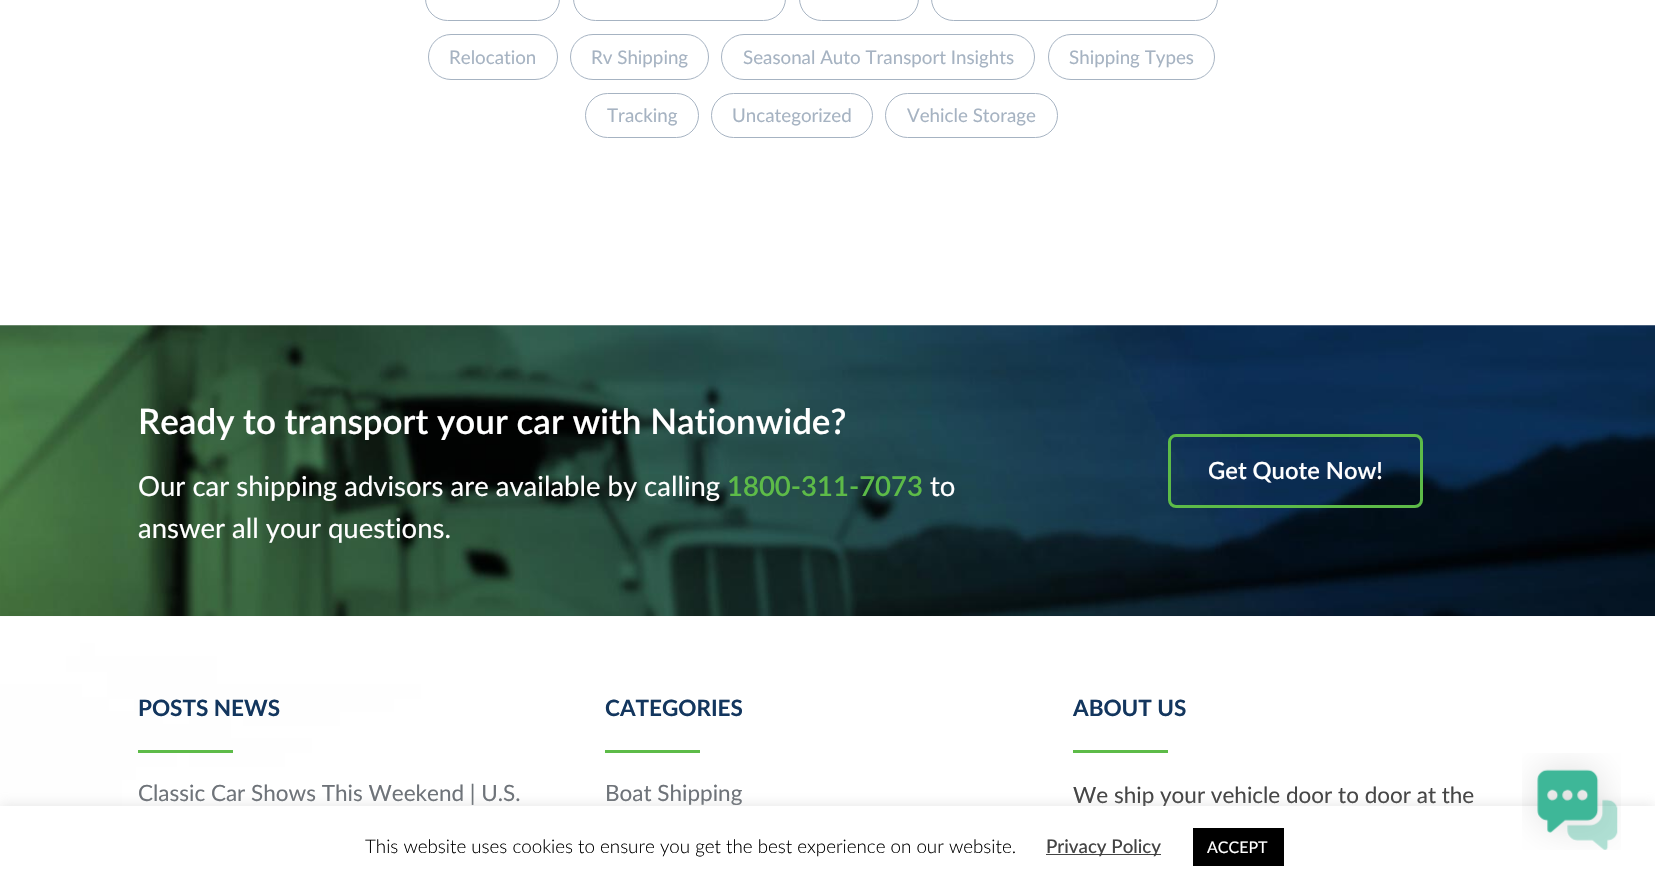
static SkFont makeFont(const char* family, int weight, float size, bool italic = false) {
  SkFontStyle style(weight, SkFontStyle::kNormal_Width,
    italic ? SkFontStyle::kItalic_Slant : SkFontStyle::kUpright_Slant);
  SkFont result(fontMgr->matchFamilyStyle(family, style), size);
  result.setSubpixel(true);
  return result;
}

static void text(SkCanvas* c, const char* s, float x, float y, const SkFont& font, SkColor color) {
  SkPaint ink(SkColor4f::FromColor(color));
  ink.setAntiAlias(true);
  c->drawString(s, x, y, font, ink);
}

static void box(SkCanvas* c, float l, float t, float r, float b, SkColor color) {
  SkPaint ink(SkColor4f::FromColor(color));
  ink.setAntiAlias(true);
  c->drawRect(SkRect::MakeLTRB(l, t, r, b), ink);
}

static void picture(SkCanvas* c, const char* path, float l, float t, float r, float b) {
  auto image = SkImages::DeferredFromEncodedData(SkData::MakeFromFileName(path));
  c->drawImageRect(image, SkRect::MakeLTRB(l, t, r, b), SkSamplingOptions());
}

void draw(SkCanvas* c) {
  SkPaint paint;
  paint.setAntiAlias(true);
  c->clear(0xffffffff);
  paint.setStyle(SkPaint::kStroke_Style);
  paint.setStrokeWidth(1);
  paint.setColor(0xffa6b3c2);
  c->drawRoundRect(SkRect::MakeLTRB(425.5f, -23.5f, 559.5f, 20.5f), 22, 22, paint);
  c->drawRoundRect(SkRect::MakeLTRB(573.5f, -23.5f, 785.5f, 20.5f), 22, 22, paint);
  c->drawRoundRect(SkRect::MakeLTRB(799.5f, -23.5f, 918.5f, 20.5f), 22, 22, paint);
  c->drawRoundRect(SkRect::MakeLTRB(931.5f, -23.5f, 1217.5f, 20.5f), 22, 22, paint);
  c->drawRoundRect(SkRect::MakeLTRB(428.5f, 34.5f, 557.5f, 79.5f), 22.5f, 22.5f, paint);
  SkFont face1 = makeFont("Lato", 400, 18.75f);
  text(c, "Relocation", 449, 64, face1, 0xffa6b3c2);
  c->drawRoundRect(SkRect::MakeLTRB(570.5f, 34.5f, 708.5f, 79.5f), 22.5f, 22.5f, paint);
  text(c, "Rv Shipping", 591, 64, face1, 0xffa6b3c2);
  c->drawRoundRect(SkRect::MakeLTRB(721.5f, 34.5f, 1034.5f, 79.5f), 22.5f, 22.5f, paint);
  text(c, "Seasonal Auto Transport Insights", 743, 64, face1, 0xffa6b3c2);
  c->drawRoundRect(SkRect::MakeLTRB(1048.5f, 34.5f, 1214.5f, 79.5f), 22.5f, 22.5f, paint);
  text(c, "Shipping Types", 1069, 64, face1, 0xffa6b3c2);
  c->drawRoundRect(SkRect::MakeLTRB(585.5f, 93.5f, 698.5f, 137.5f), 22, 22, paint);
  text(c, "Tracking", 607, 122, face1, 0xffa6b3c2);
  c->drawRoundRect(SkRect::MakeLTRB(711.5f, 93.5f, 872.5f, 137.5f), 22, 22, paint);
  text(c, "Uncategorized", 732, 122, face1, 0xffa6b3c2);
  c->drawRoundRect(SkRect::MakeLTRB(885.5f, 93.5f, 1057.5f, 137.5f), 22, 22, paint);
  text(c, "Vehicle Storage", 907, 122, face1, 0xffa6b3c2);
  picture(c, "img_01.png", 0, 325, 1655, 616);
  SkFont face2 = makeFont("Lato", 600, 35);
  text(c, "Ready to transport your car with Nationwide?", 138, 434, face2, 0xffffffff);
  SkFont face3 = makeFont("Lato", 400, 27.5f);
  text(c, "Our car shipping advisors are available by calling", 138, 496, face3, 0xffffffff);
  SkFont face4 = makeFont("Lato", 600, 27.5f);
  text(c, "1800-311-7073", 727, 496, face4, 0xff5dbb48);
  text(c, "to", 930, 496, face3, 0xffffffff);
  text(c, "answer all your questions.", 138, 538, face3, 0xffffffff);
  paint.setStrokeWidth(3);
  paint.setColor(0xff5dbb48);
  c->drawRoundRect(SkRect::MakeLTRB(1169.5f, 435.5f, 1421.5f, 506.5f), 6.5f, 6.5f, paint);
  SkFont face5 = makeFont("Lato", 600, 23.75f);
  text(c, "Get Quote Now!", 1208, 479, face5, 0xffffffff);
  box(c, 0, 616, 1655, 617, 0xfff6f6f6);
  picture(c, "img_02.png", 0, 616, 1655, 806);
  SkFont face6 = makeFont("Lato", 700, 22.5f);
  text(c, "POSTS NEWS", 138, 716, face6, 0xff13365e);
  box(c, 138, 750, 233, 753, 0xff5dbb48);
  SkFont face7 = makeFont("Lato", 400, 22.5f);
  text(c, "Classic Car Shows This Weekend | U.S.", 138, 801, face7, 0xff6d7278);
  text(c, "CATEGORIES", 605, 716, face6, 0xff13365e);
  box(c, 605, 750, 700, 753, 0xff5dbb48);
  text(c, "Boat Shipping", 605, 801, face7, 0xff6d7278);
  text(c, "ABOUT US", 1073, 716, face6, 0xff13365e);
  box(c, 1073, 750, 1168, 753, 0xff5dbb48);
  text(c, "We ship your vehicle door to door at the", 1073, 803, face7, 0xff444444);
  paint.setStyle(SkPaint::kFill_Style);
  paint.setColor(0x4dacabab);
  paint.setMaskFilter(SkMaskFilter::MakeBlur(kNormal_SkBlurStyle, 6));
  c->drawRect(SkRect::MakeLTRB(0, 805, 1655, 886), paint);
  paint.setMaskFilter(nullptr);
  box(c, 0, 806, 1655, 887, 0xffffffff);
  picture(c, "img_03.png", 1522, 753, 1621, 850);
  SkFont face8 = makeFont("Lato", 300, 18.75f);
  text(c, "This website uses cookies to ensure you get the best experience on our website.", 365, 853, face8, 0xff000000);
  box(c, 1046, 854, 1161, 855, 0xff444444);
  SkFont face9 = makeFont("Lato", 500, 18.75f);
  text(c, "Privacy Policy", 1046, 853, face9, 0xff444444);
  box(c, 1193, 828, 1284, 866, 0xff000000);
  SkFont face10 = makeFont("Lato", 400, 16);
  text(c, "ACCEPT", 1207, 853, face10, 0xffffffff);
}
